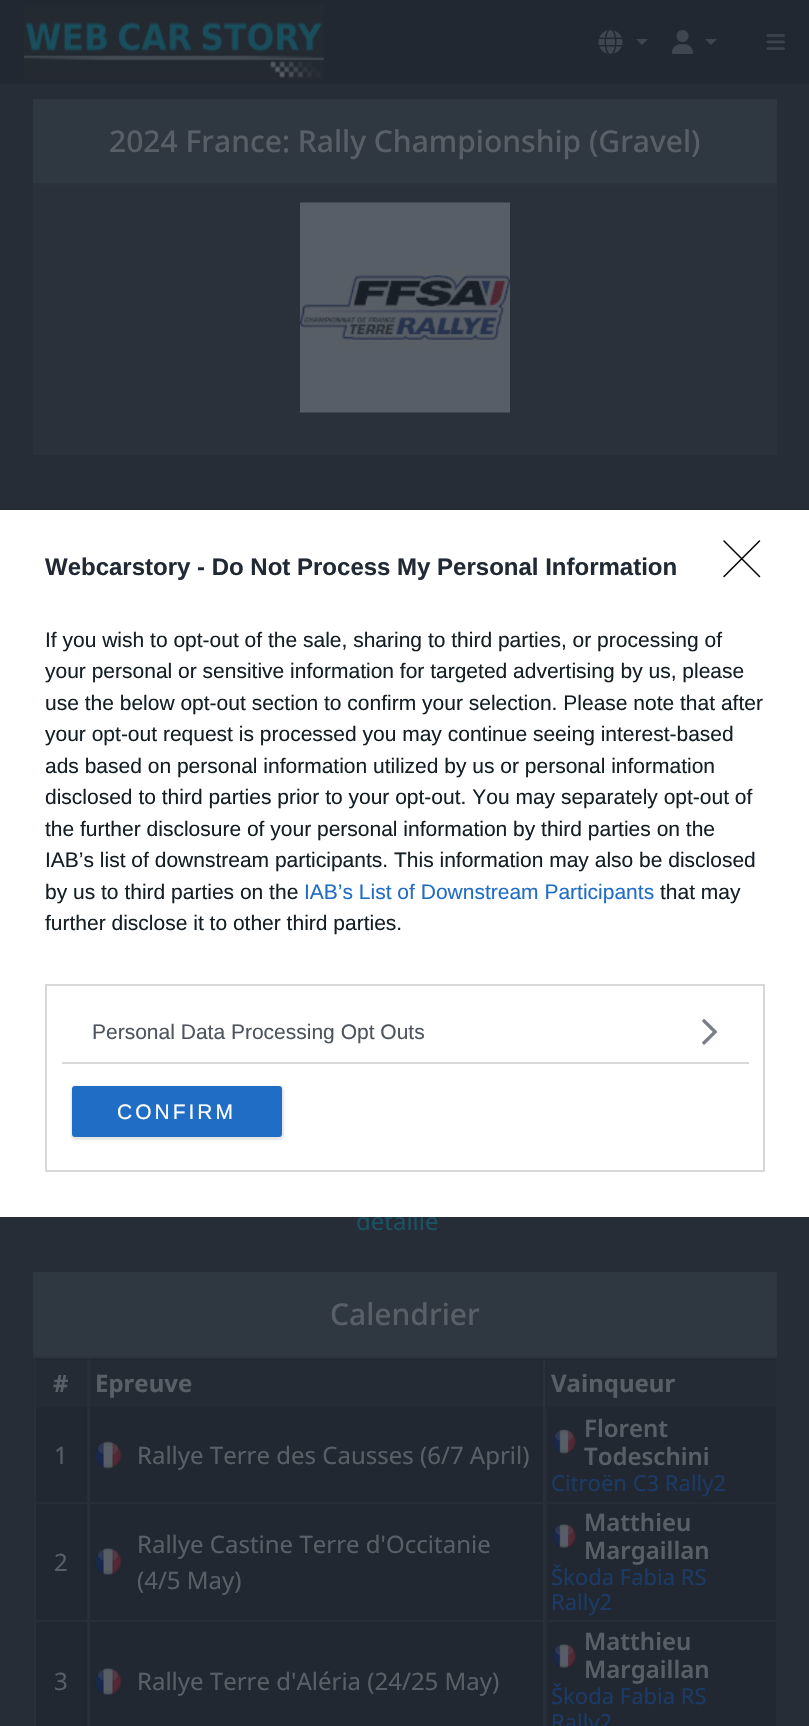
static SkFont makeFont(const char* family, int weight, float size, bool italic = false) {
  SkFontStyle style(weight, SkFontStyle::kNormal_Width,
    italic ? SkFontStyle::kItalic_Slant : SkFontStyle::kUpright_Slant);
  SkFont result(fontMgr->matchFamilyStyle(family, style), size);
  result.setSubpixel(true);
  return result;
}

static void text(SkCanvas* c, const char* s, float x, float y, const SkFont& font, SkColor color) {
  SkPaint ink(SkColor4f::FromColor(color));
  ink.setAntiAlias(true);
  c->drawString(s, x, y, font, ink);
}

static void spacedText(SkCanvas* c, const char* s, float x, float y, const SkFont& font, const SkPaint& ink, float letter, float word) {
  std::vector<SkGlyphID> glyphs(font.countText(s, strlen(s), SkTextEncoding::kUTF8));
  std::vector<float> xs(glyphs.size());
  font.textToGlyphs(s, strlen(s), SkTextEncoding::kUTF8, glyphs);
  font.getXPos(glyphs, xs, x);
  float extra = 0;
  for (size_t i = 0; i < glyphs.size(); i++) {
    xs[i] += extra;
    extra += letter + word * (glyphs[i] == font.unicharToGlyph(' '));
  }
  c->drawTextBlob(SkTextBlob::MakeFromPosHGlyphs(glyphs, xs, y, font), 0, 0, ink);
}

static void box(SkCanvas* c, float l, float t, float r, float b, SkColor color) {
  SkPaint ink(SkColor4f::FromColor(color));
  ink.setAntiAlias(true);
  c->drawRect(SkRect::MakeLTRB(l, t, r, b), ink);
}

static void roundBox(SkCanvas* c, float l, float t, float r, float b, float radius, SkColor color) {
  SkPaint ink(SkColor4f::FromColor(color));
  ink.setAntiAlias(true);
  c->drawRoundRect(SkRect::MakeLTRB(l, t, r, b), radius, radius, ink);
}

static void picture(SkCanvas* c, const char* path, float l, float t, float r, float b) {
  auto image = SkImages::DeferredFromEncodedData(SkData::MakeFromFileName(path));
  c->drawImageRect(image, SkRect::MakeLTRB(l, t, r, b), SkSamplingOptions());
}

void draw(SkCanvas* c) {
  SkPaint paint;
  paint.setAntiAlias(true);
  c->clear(0xff262d37);
  box(c, 0, 0, 809, 84, 0xff212831);
  picture(c, "img_01.png", 24, 4, 324, 80);
  picture(c, "img_02.png", 598, 30, 623, 54);
  paint.setColor(0xff40464f);
  c->drawPath(SkPathBuilder().moveTo(636, 39).lineTo(648, 39).lineTo(642, 45).close().detach(), paint);
  picture(c, "img_03.png", 672, 30, 693, 54);
  c->drawPath(SkPathBuilder().moveTo(705, 39).lineTo(717, 39).lineTo(711, 45).close().detach(), paint);
  picture(c, "img_04.png", 766, 34, 785, 50);
  box(c, 33, 99, 777, 183, 0xff2f3741);
  box(c, 33, 183, 777, 185, 0xff2b333d);
  SkFont face1 = makeFont("Noto Sans", 500, 30);
  text(c, "2024 France: Rally Championship (Gravel)", 109, 152, face1, 0xff595f67);
  box(c, 33, 185, 777, 455, 0xff2a313b);
  picture(c, "img_05.png", 300, 202, 510, 413);
  SkFont face2 = makeFont("Noto Sans", 400, 24);
  text(c, "détaillé", 356, 1230, face2, 0xff1c5163);
  box(c, 35, 1360, 545, 1726, 0xff2a313b);
  box(c, 547, 1360, 776, 1407, 0xff242b34);
  box(c, 90, 1360, 543, 1407, 0xff242b34);
  box(c, 36, 1360, 87, 1407, 0xff242b34);
  box(c, 33, 1272, 777, 1356, 0xff2f3741);
  box(c, 33, 1356, 777, 1358, 0xff2b333d);
  text(c, "Calendrier", 330, 1325, face1, 0xff595f67);
  box(c, 546, 1359, 776, 1360, 0xff222831);
  box(c, 90, 1359, 543, 1360, 0xff222831);
  box(c, 36, 1359, 87, 1360, 0xff222831);
  SkFont face3 = makeFont("Noto Sans", 700, 24);
  text(c, "#", 53, 1392, face3, 0xff595f67);
  text(c, "Epreuve", 95, 1392, face3, 0xff595f67);
  box(c, 546, 1358, 547, 1360, 0xff272e37);
  box(c, 546, 1407, 776, 1409, 0xff222831);
  box(c, 546, 1407, 547, 1409, 0xff272e37);
  box(c, 546, 1359, 547, 1409, 0xff222831);
  text(c, "Vainqueur", 551, 1392, face3, 0xff595f67);
  box(c, 33, 1407, 545, 1409, 0xff272e37);
  box(c, 90, 1407, 543, 1409, 0xff222831);
  box(c, 36, 1407, 87, 1409, 0xff222831);
  box(c, 36, 1409, 87, 1502, 0xff212831);
  text(c, "1", 54, 1464, face2, 0xff595f67);
  box(c, 90, 1409, 543, 1502, 0xff212831);
  picture(c, "img_06.png", 94, 1441, 122, 1469);
  text(c, "Rallye Terre des Causses (6/7 April)", 137, 1464, face2, 0xff595f67);
  box(c, 547, 1409, 776, 1502, 0xff212831);
  picture(c, "img_07.png", 552, 1429, 576, 1454);
  SkFont face4 = makeFont("Noto Sans", 600, 24);
  text(c, "Florent", 584, 1437, face4, 0xff595f67);
  text(c, "Todeschini", 584, 1465, face4, 0xff595f67);
  SkFont face5 = makeFont("Noto Sans", 400, 22);
  text(c, "Citroën C3 Rally2", 551, 1491, face5, 0xff1c3a66);
  box(c, 33, 1502, 545, 1504, 0xff272e37);
  box(c, 36, 1504, 87, 1620, 0xff212831);
  text(c, "2", 54, 1571, face2, 0xff595f67);
  box(c, 90, 1504, 543, 1620, 0xff212831);
  picture(c, "img_08.png", 94, 1548, 122, 1575);
  text(c, "Rallye Castine Terre d'Occitanie", 137, 1553, face2, 0xff595f67);
  text(c, "(4/5 May)", 137, 1589, face2, 0xff595f67);
  box(c, 547, 1504, 776, 1620, 0xff212831);
  picture(c, "img_09.png", 552, 1524, 576, 1548);
  text(c, "Matthieu", 584, 1531, face4, 0xff595f67);
  text(c, "Margaillan", 584, 1559, face4, 0xff595f67);
  text(c, "Škoda Fabia RS", 551, 1585, face5, 0xff1c3a66);
  text(c, "Rally2", 551, 1610, face5, 0xff1c3a66);
  box(c, 33, 1620, 545, 1622, 0xff272e37);
  box(c, 36, 1622, 87, 1726, 0xff212831);
  text(c, "3", 54, 1690, face2, 0xff595f67);
  box(c, 90, 1622, 543, 1726, 0xff212831);
  box(c, 87, 1358, 89, 1726, 0xff272e37);
  picture(c, "img_08.png", 94, 1668, 122, 1695);
  text(c, "Rallye Terre d'Aléria (24/25 May)", 137, 1690, face2, 0xff595f67);
  box(c, 547, 1622, 776, 1726, 0xff212831);
  picture(c, "img_09.png", 552, 1644, 576, 1668);
  text(c, "Matthieu", 584, 1650, face4, 0xff595f67);
  text(c, "Margaillan", 584, 1678, face4, 0xff595f67);
  text(c, "Škoda Fabia RS", 551, 1704, face5, 0xff1c3a66);
  text(c, "Rally2", 551, 1730, face5, 0xff1c3a66);
  box(c, 0, 510, 809, 1217, 0xffffffff);
  paint.setStyle(SkPaint::kStroke_Style);
  paint.setStrokeWidth(1.5f);
  paint.setStrokeCap(SkPaint::kRound_Cap);
  paint.setStrokeJoin(SkPaint::kRound_Join);
  paint.setColor(0xff000000);
  c->drawPath(SkPathBuilder().moveTo(724, 541).lineTo(759.5f, 576.5f).moveTo(759.5f, 541).lineTo(724, 576.5f).detach(), paint);
  SkFont face6 = makeFont("Liberation Sans", 700, 24);
  text(c, "Webcarstory - Do Not Process My Personal Information", 45, 575, face6, 0xff212934);
  SkFont face7 = makeFont("Liberation Sans", 400, 21);
  text(c, "If you wish to opt-out of the sale, sharing to third parties, or processing of", 45, 647, face7, 0xff141e23);
  text(c, "your personal or sensitive information for targeted advertising by us, please", 45, 678, face7, 0xff141e23);
  text(c, "use the below opt-out section to confirm your selection. Please note that after", 45, 710, face7, 0xff141e23);
  text(c, "your opt-out request is processed you may continue seeing interest-based", 45, 741, face7, 0xff141e23);
  text(c, "ads based on personal information utilized by us or personal information", 45, 773, face7, 0xff141e23);
  text(c, "disclosed to third parties prior to your opt-out. You may separately opt-out of", 45, 804, face7, 0xff141e23);
  text(c, "the further disclosure of your personal information by third parties on the", 45, 836, face7, 0xff141e23);
  text(c, "IAB’s list of downstream participants. This information may also be disclosed", 45, 867, face7, 0xff141e23);
  text(c, "by us to third parties on the", 45, 899, face7, 0xff141e23);
  text(c, "IAB’s List of Downstream Participants", 304, 899, face7, 0xff206dc5);
  text(c, "that may", 660, 899, face7, 0xff141e23);
  text(c, "further disclose it to other third parties.", 45, 930, face7, 0xff141e23);
  paint.setStrokeWidth(2);
  paint.setStrokeCap(SkPaint::kButt_Cap);
  paint.setStrokeJoin(SkPaint::kMiter_Join);
  paint.setColor(0xffd8d8d8);
  c->drawRect(SkRect::MakeLTRB(46, 985, 764, 1171), paint);
  box(c, 62, 1062, 749, 1064, 0xffd8d8d8);
  text(c, "Personal Data Processing Opt Outs", 92, 1039, face7, 0xff4d545d);
  picture(c, "img_10.png", 702, 1019, 717, 1045);
  paint.setStyle(SkPaint::kFill_Style);
  paint.setColor(0x1a000000);
  paint.setMaskFilter(SkMaskFilter::MakeBlur(kNormal_SkBlurStyle, 1));
  c->drawRoundRect(SkRect::MakeLTRB(71, 1086, 284, 1140), 5, 5, paint);
  paint.setMaskFilter(nullptr);
  roundBox(c, 72, 1086, 282, 1137, 3, 0xff206dc5);
  paint.setColor(0xffffffff);
  spacedText(c, "CONFIRM", 117, 1119, face7, paint, 3, 0);
}
